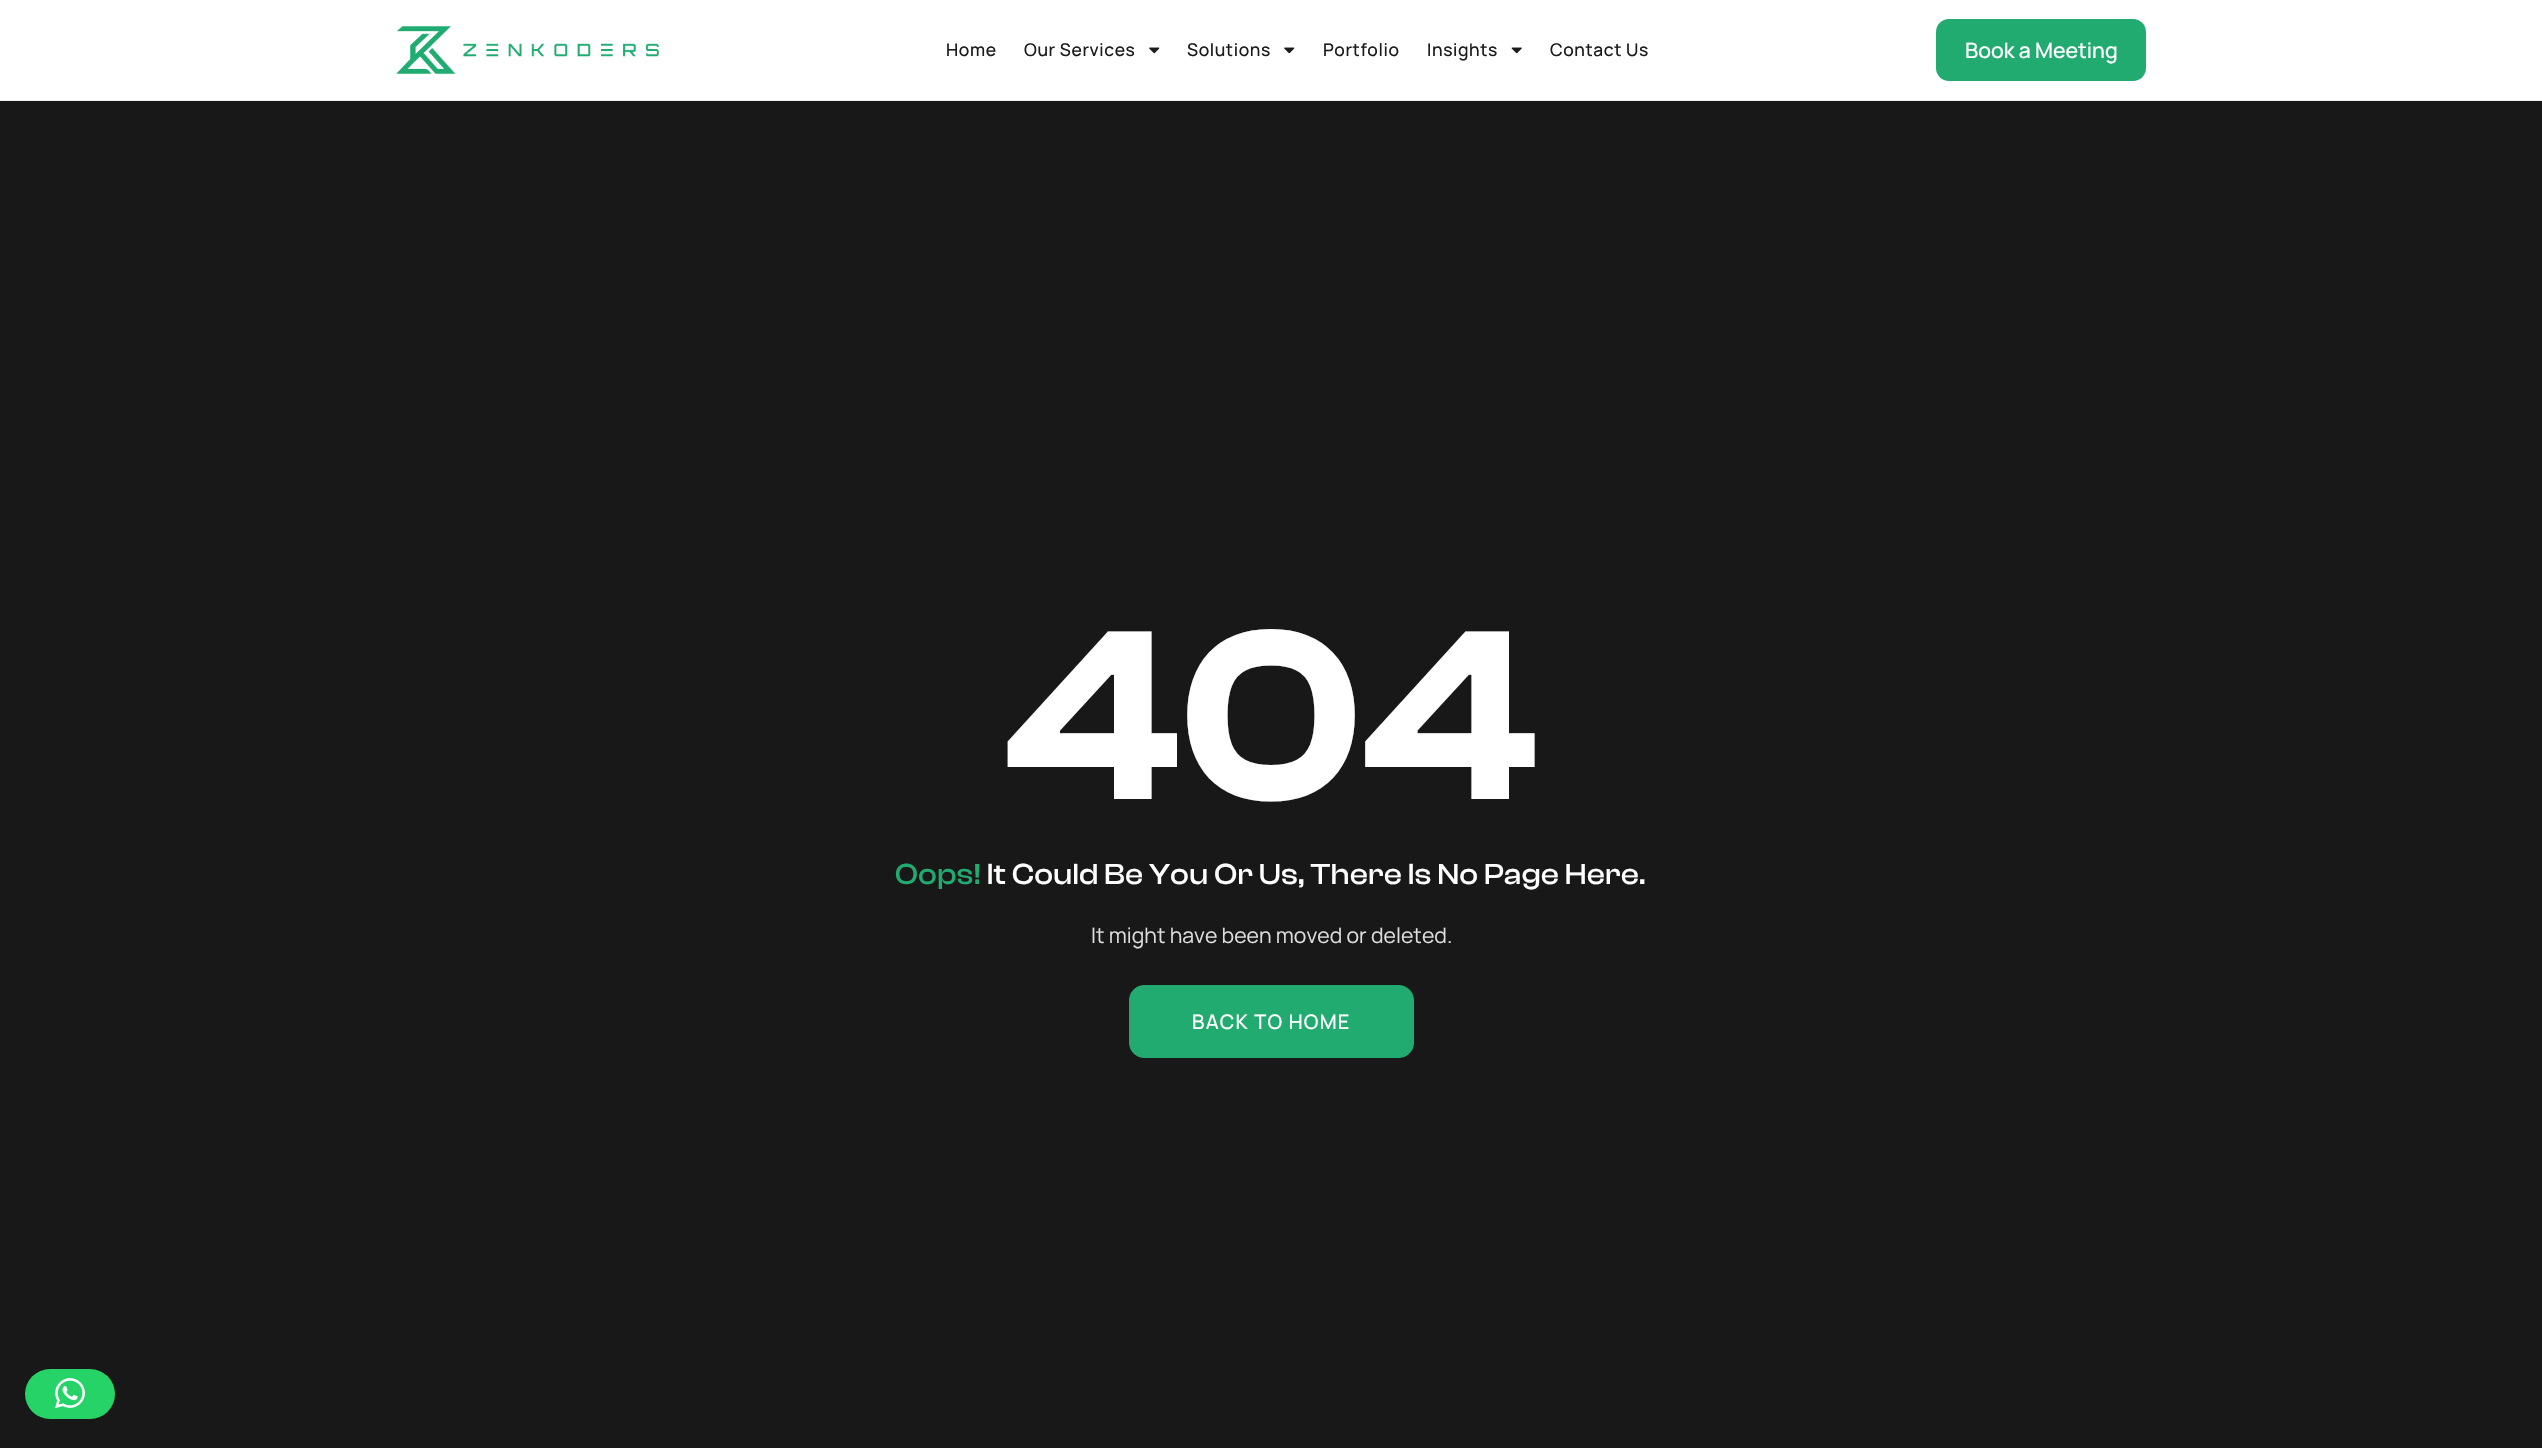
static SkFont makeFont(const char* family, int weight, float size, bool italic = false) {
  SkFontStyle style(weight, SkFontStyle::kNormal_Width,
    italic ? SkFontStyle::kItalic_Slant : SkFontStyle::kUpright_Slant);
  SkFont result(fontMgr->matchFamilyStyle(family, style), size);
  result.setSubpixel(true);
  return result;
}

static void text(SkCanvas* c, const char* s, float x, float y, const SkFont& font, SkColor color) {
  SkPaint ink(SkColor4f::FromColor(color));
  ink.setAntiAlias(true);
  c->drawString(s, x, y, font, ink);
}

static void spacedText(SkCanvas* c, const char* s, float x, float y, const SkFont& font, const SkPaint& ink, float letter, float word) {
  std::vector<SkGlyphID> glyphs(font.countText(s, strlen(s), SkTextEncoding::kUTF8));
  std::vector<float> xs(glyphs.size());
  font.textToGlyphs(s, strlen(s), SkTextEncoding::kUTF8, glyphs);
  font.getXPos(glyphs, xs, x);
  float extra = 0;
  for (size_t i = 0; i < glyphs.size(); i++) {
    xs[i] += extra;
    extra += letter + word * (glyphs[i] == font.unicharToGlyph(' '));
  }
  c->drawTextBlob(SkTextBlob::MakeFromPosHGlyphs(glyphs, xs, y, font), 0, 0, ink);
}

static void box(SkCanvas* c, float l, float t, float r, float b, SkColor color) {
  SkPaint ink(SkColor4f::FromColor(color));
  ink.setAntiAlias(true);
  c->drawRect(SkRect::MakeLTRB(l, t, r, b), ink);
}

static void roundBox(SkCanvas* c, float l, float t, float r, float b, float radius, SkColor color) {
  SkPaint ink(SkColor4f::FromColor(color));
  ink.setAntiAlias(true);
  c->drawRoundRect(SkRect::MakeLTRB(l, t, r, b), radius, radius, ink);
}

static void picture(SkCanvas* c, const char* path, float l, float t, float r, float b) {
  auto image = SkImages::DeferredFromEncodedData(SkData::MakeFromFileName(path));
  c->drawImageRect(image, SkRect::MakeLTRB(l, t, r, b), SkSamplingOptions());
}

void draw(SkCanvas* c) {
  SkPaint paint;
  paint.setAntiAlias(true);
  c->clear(0xff181818);
  box(c, 0, 0, 2542, 100, 0xffffffff);
  box(c, 0, 100, 2542, 101, 0xffeeeeee);
  picture(c, "img_01.png", 396, 25, 659, 75);
  SkFont face1 = makeFont("Manrope", 500, 17.5f);
  paint.setColor(0xff1b1b1b);
  spacedText(c, "Home", 946, 56, face1, paint, 0.6f, 0);
  spacedText(c, "Our Services", 1024, 56, face1, paint, 0.6f, 0);
  picture(c, "img_02.png", 1149, 47, 1160, 54);
  spacedText(c, "Solutions", 1187, 56, face1, paint, 0.6f, 0);
  picture(c, "img_02.png", 1284, 47, 1295, 54);
  spacedText(c, "Portfolio", 1323, 56, face1, paint, 0.6f, 0);
  spacedText(c, "Insights", 1427, 56, face1, paint, 0.6f, 0);
  picture(c, "img_03.png", 1511, 47, 1522, 54);
  spacedText(c, "Contact Us", 1550, 56, face1, paint, 0.6f, 0);
  roundBox(c, 1936, 19, 2146, 81, 13, 0xff21ab71);
  SkFont face2 = makeFont("Manrope", 500, 21.25f);
  text(c, "Book a Meeting", 1965, 58, face2, 0xffffffff);
  SkFont face3 = makeFont("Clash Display", 600, 250);
  paint.setColor(0xffffffff);
  spacedText(c, "404", 1004, 799, face3, paint, 0.6f, 0);
  SkFont face4 = makeFont("Clash Display", 500, 30);
  paint.setColor(0xff21ab71);
  spacedText(c, "Oops!", 895, 884, face4, paint, 0.6f, 0);
  paint.setColor(0xffffffff);
  spacedText(c, "It Could Be You Or Us, There Is No Page Here.", 987, 884, face4, paint, 0.6f, 0);
  SkFont face5 = makeFont("Manrope", 400, 21.25f);
  text(c, "It might have been moved or deleted.", 1091, 943, face5, 0xffdedcdc);
  paint.setColor(0xff21ab71);
  c->drawRoundRect(SkRect::MakeLTRB(1129.5f, 985.5f, 1413.5f, 1057.5f), 14.5f, 14.5f, paint);
  paint.setStyle(SkPaint::kStroke_Style);
  paint.setStrokeWidth(1);
  c->drawRoundRect(SkRect::MakeLTRB(1129.5f, 985.5f, 1413.5f, 1057.5f), 14.5f, 14.5f, paint);
  SkFont face6 = makeFont("Manrope", 500, 20);
  paint.setStyle(SkPaint::kFill_Style);
  paint.setColor(0xffffffff);
  spacedText(c, "BACK TO HOME", 1192, 1029, face6, paint, 1.25f, 0);
  roundBox(c, 25, 1369, 115, 1419, 25, 0xff25d366);
  picture(c, "img_04.png", 55, 1378, 85, 1409);
}
